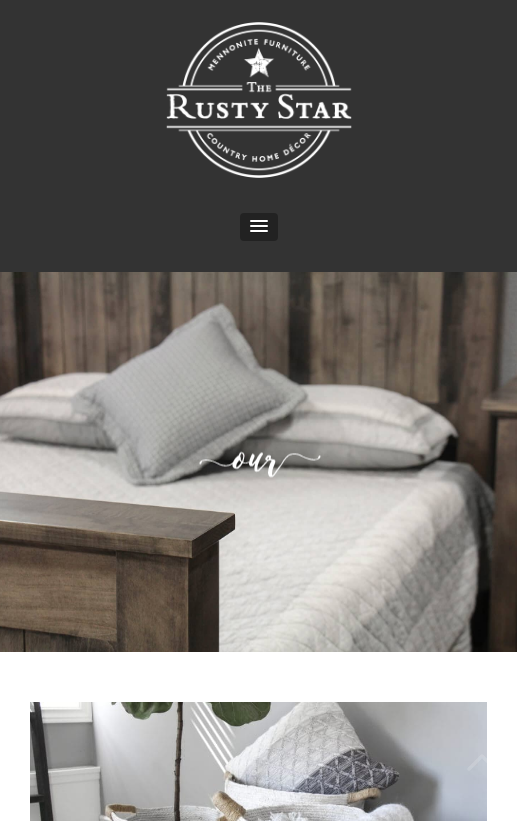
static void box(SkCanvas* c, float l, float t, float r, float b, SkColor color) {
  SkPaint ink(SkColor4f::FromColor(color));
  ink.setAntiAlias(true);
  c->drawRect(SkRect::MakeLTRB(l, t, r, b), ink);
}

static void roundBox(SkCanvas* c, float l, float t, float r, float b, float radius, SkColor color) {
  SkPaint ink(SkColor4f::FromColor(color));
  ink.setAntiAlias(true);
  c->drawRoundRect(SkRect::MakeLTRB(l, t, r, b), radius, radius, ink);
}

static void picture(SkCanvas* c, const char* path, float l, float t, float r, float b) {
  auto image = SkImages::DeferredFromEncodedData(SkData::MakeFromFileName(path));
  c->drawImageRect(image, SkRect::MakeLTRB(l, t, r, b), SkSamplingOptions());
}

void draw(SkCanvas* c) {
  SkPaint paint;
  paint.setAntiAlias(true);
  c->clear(0xffffffff);
  box(c, 0, 0, 517, 272, 0xff333333);
  picture(c, "img_01.png", 166, 22, 352, 178);
  roundBox(c, 240, 213, 278, 241, 4, 0xff222222);
  paint.setColor(0xff1a1a1a);
  c->drawPath(SkPathBuilder().moveTo(250, 221.5f).cubicTo(249, 223.5f, 253.5f, 223, 253.5f, 223).lineTo(264.5f, 223).cubicTo(264.5f, 223, 269, 223.5f, 268, 221.5f).cubicTo(267, 222.5f, 260.5f, 222, 259, 222).cubicTo(257.5f, 222, 251, 222.5f, 250, 221.5f).close().detach(), paint);
  roundBox(c, 250, 220, 268, 222, 1, 0xffffffff);
  c->drawPath(SkPathBuilder().moveTo(250, 226.5f).cubicTo(249, 228.5f, 253.5f, 228, 253.5f, 228).lineTo(264.5f, 228).cubicTo(264.5f, 228, 269, 228.5f, 268, 226.5f).cubicTo(267, 227.5f, 260.5f, 227, 259, 227).cubicTo(257.5f, 227, 251, 227.5f, 250, 226.5f).close().detach(), paint);
  roundBox(c, 250, 225, 268, 227, 1, 0xffffffff);
  c->drawPath(SkPathBuilder().moveTo(250, 231.5f).cubicTo(249, 233.5f, 253.5f, 233, 253.5f, 233).lineTo(264.5f, 233).cubicTo(264.5f, 233, 269, 233.5f, 268, 231.5f).cubicTo(267, 232.5f, 260.5f, 232, 259, 232).cubicTo(257.5f, 232, 251, 232.5f, 250, 231.5f).close().detach(), paint);
  roundBox(c, 250, 230, 268, 232, 1, 0xffffffff);
  picture(c, "img_02.png", 0, 272, 517, 652);
  picture(c, "img_03.png", 199, 451, 321, 478);
  picture(c, "img_04.png", 30, 702, 487, 821);
  picture(c, "img_05.png", 467, 754, 487, 771);
}
